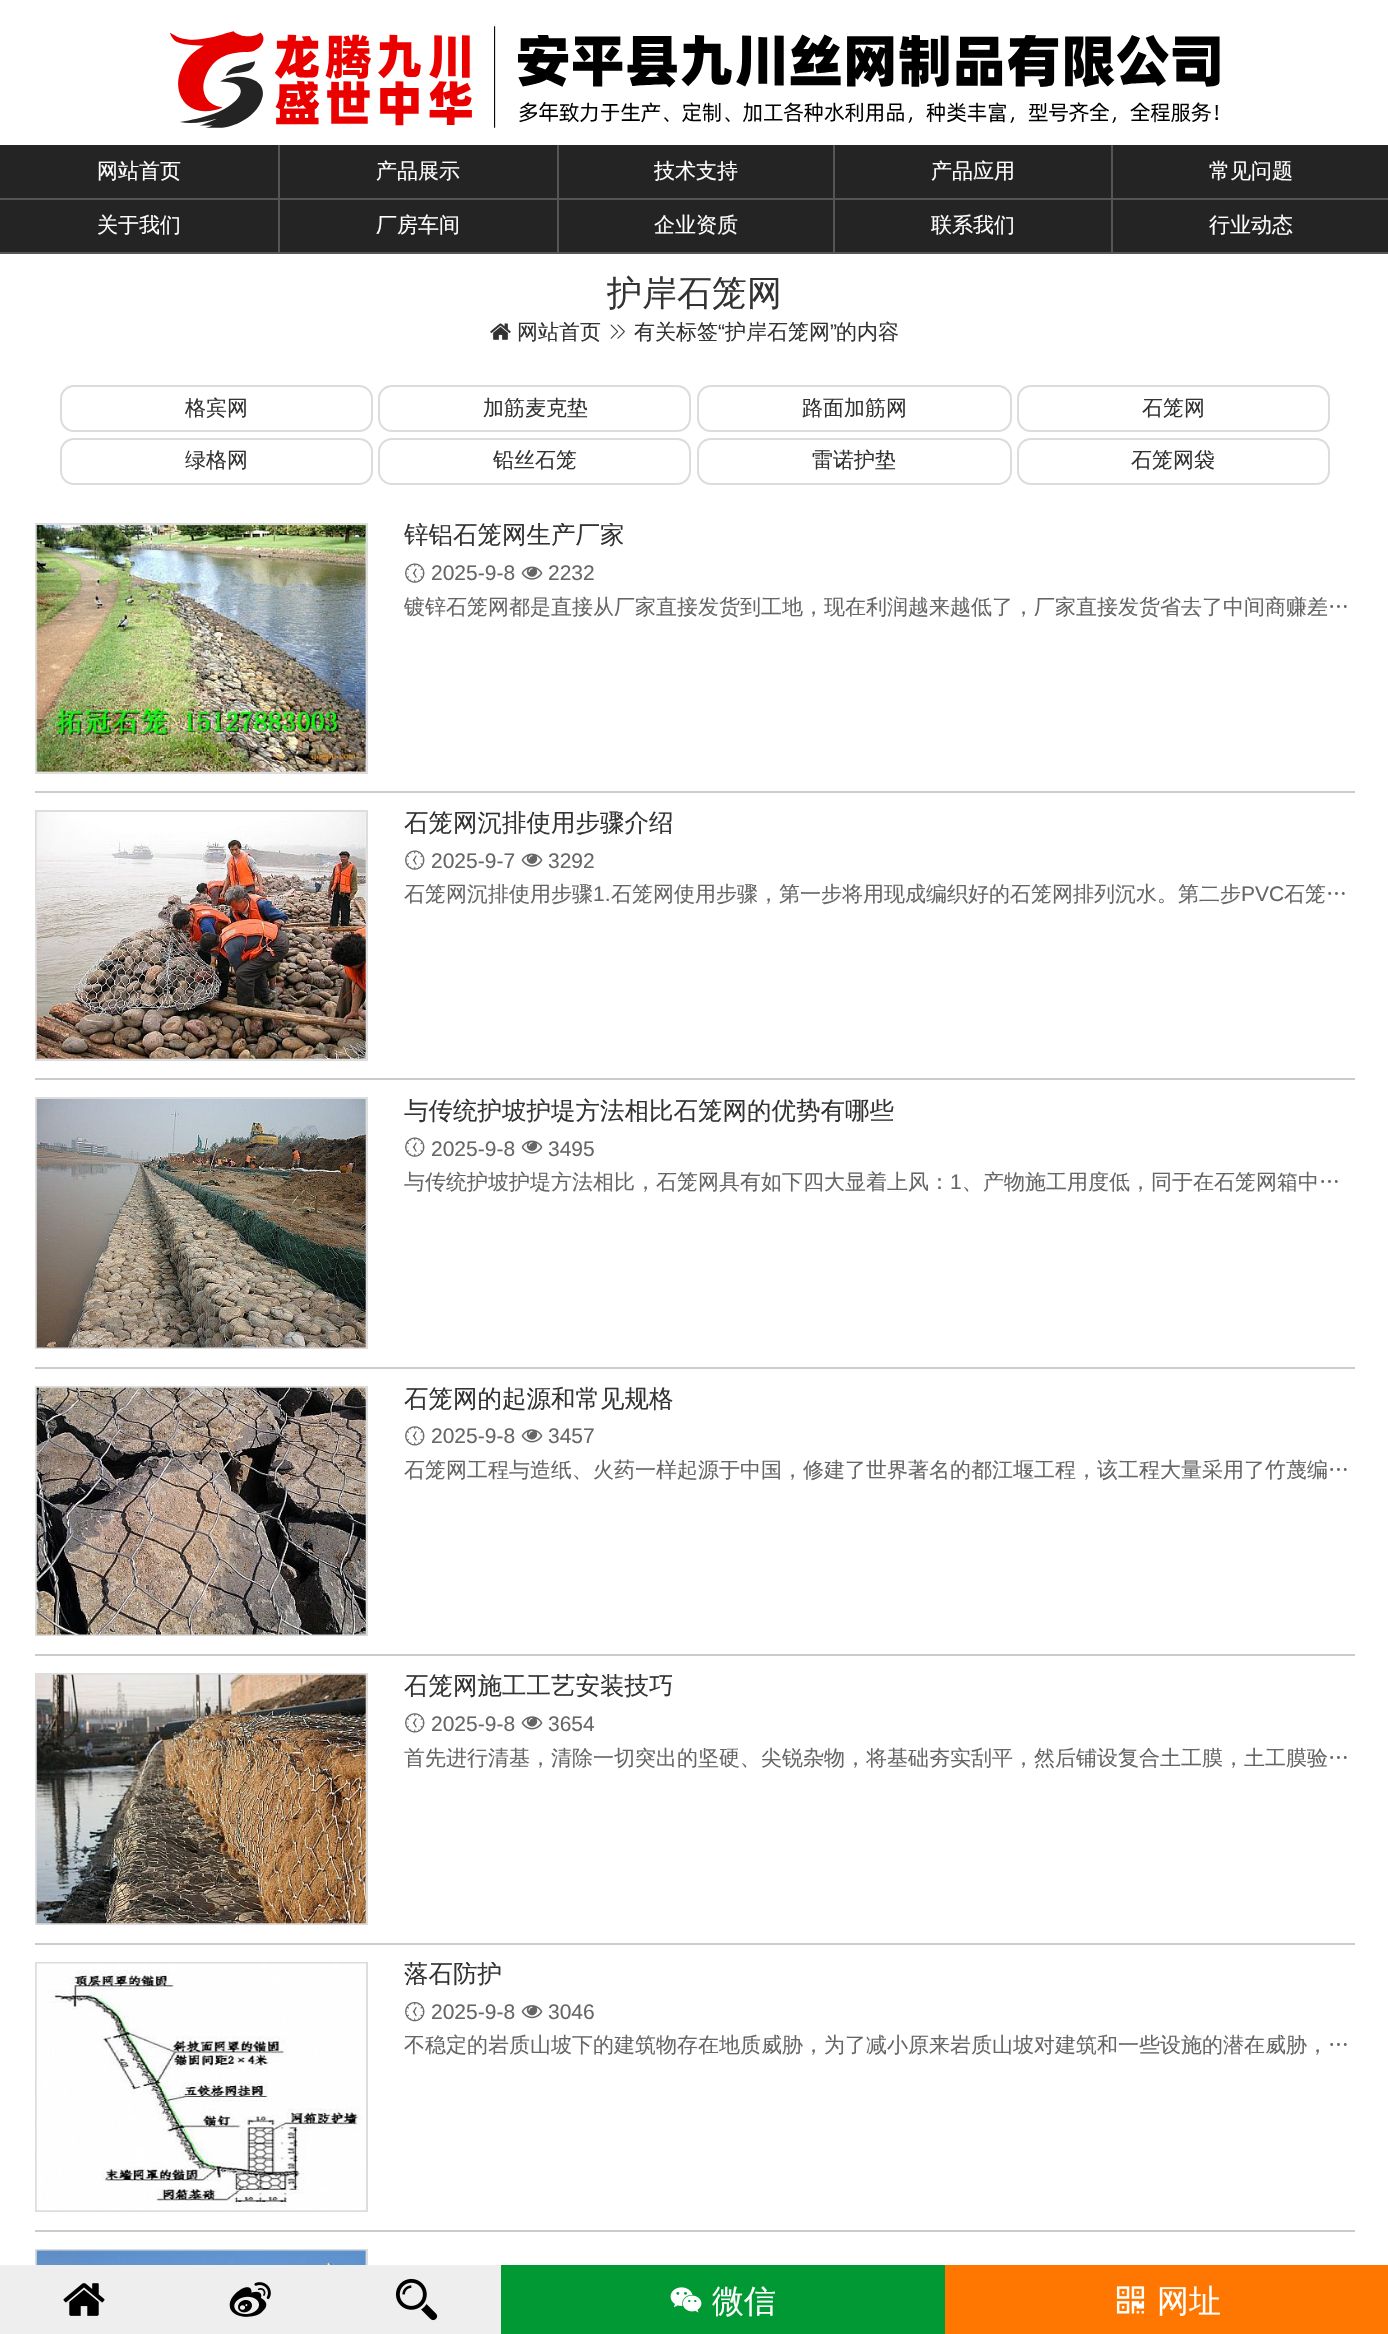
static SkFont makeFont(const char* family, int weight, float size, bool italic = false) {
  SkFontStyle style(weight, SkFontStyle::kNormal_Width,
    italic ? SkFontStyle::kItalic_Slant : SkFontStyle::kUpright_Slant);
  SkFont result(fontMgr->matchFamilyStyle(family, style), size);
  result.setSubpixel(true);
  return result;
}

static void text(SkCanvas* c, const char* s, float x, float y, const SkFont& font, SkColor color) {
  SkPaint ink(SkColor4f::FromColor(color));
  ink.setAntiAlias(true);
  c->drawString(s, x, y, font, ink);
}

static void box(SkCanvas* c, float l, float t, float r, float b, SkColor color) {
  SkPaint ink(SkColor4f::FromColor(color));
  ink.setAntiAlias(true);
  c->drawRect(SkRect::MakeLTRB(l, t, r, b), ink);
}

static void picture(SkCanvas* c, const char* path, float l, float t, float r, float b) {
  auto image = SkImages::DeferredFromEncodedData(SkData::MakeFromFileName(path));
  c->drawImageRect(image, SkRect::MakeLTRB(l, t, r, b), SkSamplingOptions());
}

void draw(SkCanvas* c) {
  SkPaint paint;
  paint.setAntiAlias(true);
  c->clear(0xffffffff);
  picture(c, "img_01.png", 170, 26, 1220, 128);
  box(c, 0, 145, 1388, 252, 0xff242424);
  box(c, 0, 198, 1388, 200, 0xff555555);
  SkFont face1 = makeFont("WenQuanYi Zen Hei", 500, 21);
  text(c, "网站首页", 97, 178, face1, 0xffffffff);
  box(c, 278, 145, 280, 200, 0xff555555);
  text(c, "产品展示", 376, 178, face1, 0xffffffff);
  box(c, 557, 145, 559, 200, 0xff555555);
  text(c, "技术支持", 654, 178, face1, 0xffffffff);
  box(c, 833, 145, 835, 200, 0xff555555);
  text(c, "产品应用", 931, 178, face1, 0xffffffff);
  box(c, 1111, 145, 1113, 200, 0xff555555);
  text(c, "常见问题", 1209, 178, face1, 0xffffffff);
  box(c, 0, 252, 1388, 254, 0xff555555);
  text(c, "关于我们", 97, 232, face1, 0xffffffff);
  box(c, 278, 200, 280, 254, 0xff555555);
  text(c, "厂房车间", 376, 232, face1, 0xffffffff);
  box(c, 557, 200, 559, 254, 0xff555555);
  text(c, "企业资质", 654, 232, face1, 0xffffffff);
  box(c, 833, 200, 835, 254, 0xff555555);
  text(c, "联系我们", 931, 232, face1, 0xffffffff);
  box(c, 1111, 200, 1113, 254, 0xff555555);
  text(c, "行业动态", 1209, 232, face1, 0xffffffff);
  SkFont face2 = makeFont("WenQuanYi Zen Hei", 500, 35);
  text(c, "护岸石笼网", 607, 305, face2, 0xff333333);
  picture(c, "img_02.png", 490, 323, 511, 340);
  text(c, "网站首页", 517, 339, face1, 0xff333333);
  picture(c, "img_03.png", 610, 324, 625, 339);
  text(c, "有关标签", 634, 339, face1, 0xff333333);
  SkFont face3 = makeFont("Liberation Sans", 400, 21);
  text(c, "“", 718, 339, face3, 0xff333333);
  text(c, "护岸石笼网", 725, 339, face1, 0xff333333);
  text(c, "”", 830, 339, face3, 0xff333333);
  text(c, "的内容", 836, 339, face1, 0xff333333);
  paint.setStyle(SkPaint::kStroke_Style);
  paint.setStrokeWidth(2);
  paint.setColor(0xffdcdcdc);
  c->drawRoundRect(SkRect::MakeLTRB(61, 386, 372, 431), 13, 13, paint);
  text(c, "格宾网", 185, 415, face1, 0xff333333);
  c->drawRoundRect(SkRect::MakeLTRB(379, 386, 690, 431), 13, 13, paint);
  text(c, "加筋麦克垫", 483, 415, face1, 0xff333333);
  c->drawRoundRect(SkRect::MakeLTRB(698, 386, 1011, 431), 13, 13, paint);
  text(c, "路面加筋网", 802, 415, face1, 0xff333333);
  c->drawRoundRect(SkRect::MakeLTRB(1018, 386, 1329, 431), 13, 13, paint);
  text(c, "石笼网", 1142, 415, face1, 0xff333333);
  c->drawRoundRect(SkRect::MakeLTRB(61, 439, 372, 484), 13, 13, paint);
  text(c, "绿格网", 185, 467, face1, 0xff333333);
  c->drawRoundRect(SkRect::MakeLTRB(379, 439, 690, 484), 13, 13, paint);
  text(c, "铅丝石笼", 493, 467, face1, 0xff333333);
  c->drawRoundRect(SkRect::MakeLTRB(698, 439, 1011, 484), 13, 13, paint);
  text(c, "雷诺护垫", 812, 467, face1, 0xff333333);
  c->drawRoundRect(SkRect::MakeLTRB(1018, 439, 1329, 484), 13, 13, paint);
  text(c, "石笼网袋", 1131, 467, face1, 0xff333333);
  box(c, 35, 791, 1355, 793, 0xffcccccc);
  paint.setColor(0xffdddddd);
  c->drawRect(SkRect::MakeLTRB(36, 524, 367, 773), paint);
  picture(c, "img_04.png", 36, 525, 366, 772);
  c->save();
  c->clipRect(SkRect::MakeLTRB(404, 523, 1355, 557));
  SkFont face4 = makeFont("WenQuanYi Zen Hei", 500, 24.5f);
  text(c, "锌铝石笼网生产厂家", 404, 543, face4, 0xff333333);
  c->restore();
  picture(c, "img_05.png", 405, 563, 425, 583);
  text(c, "2025-9-8", 431, 580, face3, 0xff666666);
  picture(c, "img_06.png", 521, 566, 543, 580);
  text(c, "2232", 548, 580, face3, 0xff666666);
  text(c, "镀锌石笼网都是直接从厂家直接发货到工地，现在利润越来越低了，厂家直接发货省去了中间商赚差…", 404, 614, face1, 0xff666666);
  box(c, 35, 1078, 1355, 1080, 0xffcccccc);
  c->drawRect(SkRect::MakeLTRB(36, 811, 367, 1060), paint);
  picture(c, "img_07.png", 36, 812, 366, 1059);
  text(c, "石笼网沉排使用步骤介绍", 404, 831, face4, 0xff333333);
  picture(c, "img_05.png", 405, 850, 425, 870);
  text(c, "2025-9-7", 431, 868, face3, 0xff666666);
  picture(c, "img_06.png", 521, 853, 543, 867);
  text(c, "3292", 548, 868, face3, 0xff666666);
  text(c, "石笼网沉排使用步骤", 404, 901, face1, 0xff666666);
  text(c, "1.", 593, 901, face3, 0xff666666);
  text(c, "石笼网使用步骤，第一步将用现成编织好的石笼网排列沉水。第二步", 611, 901, face1, 0xff666666);
  text(c, "PVC", 1241, 901, face3, 0xff666666);
  text(c, "石笼…", 1284, 901, face1, 0xff666666);
  box(c, 35, 1367, 1355, 1369, 0xffcccccc);
  c->drawRect(SkRect::MakeLTRB(36, 1098, 367, 1348), paint);
  picture(c, "img_08.png", 36, 1099, 366, 1348);
  text(c, "与传统护坡护堤方法相比石笼网的优势有哪些", 404, 1119, face4, 0xff333333);
  picture(c, "img_05.png", 405, 1137, 425, 1157);
  text(c, "2025-9-8", 431, 1156, face3, 0xff666666);
  picture(c, "img_06.png", 521, 1140, 543, 1154);
  text(c, "3495", 548, 1156, face3, 0xff666666);
  text(c, "与传统护坡护堤方法相比，石笼网具有如下四大显着上风：", 404, 1189, face1, 0xff666666);
  text(c, "1", 950, 1189, face3, 0xff666666);
  text(c, "、产物施工用度低，同于在石笼网箱中…", 962, 1189, face1, 0xff666666);
  box(c, 35, 1654, 1355, 1656, 0xffcccccc);
  c->drawRect(SkRect::MakeLTRB(36, 1387, 367, 1635), paint);
  picture(c, "img_09.png", 36, 1387, 366, 1635);
  text(c, "石笼网的起源和常见规格", 404, 1407, face4, 0xff333333);
  picture(c, "img_10.png", 405, 1426, 425, 1446);
  text(c, "2025-9-8", 431, 1443, face3, 0xff666666);
  picture(c, "img_11.png", 521, 1429, 543, 1443);
  text(c, "3457", 548, 1443, face3, 0xff666666);
  text(c, "石笼网工程与造纸、火药一样起源于中国，修建了世界著名的都江堰工程，该工程大量采用了竹蔑编…", 404, 1477, face1, 0xff666666);
  box(c, 35, 1943, 1355, 1945, 0xffcccccc);
  c->drawRect(SkRect::MakeLTRB(36, 1674, 367, 1924), paint);
  picture(c, "img_12.png", 36, 1674, 366, 1924);
  text(c, "石笼网施工工艺安装技巧", 404, 1694, face4, 0xff333333);
  picture(c, "img_10.png", 405, 1713, 425, 1733);
  text(c, "2025-9-8", 431, 1731, face3, 0xff666666);
  picture(c, "img_11.png", 521, 1716, 543, 1730);
  text(c, "3654", 548, 1731, face3, 0xff666666);
  text(c, "首先进行清基，清除一切突出的坚硬、尖锐杂物，将基础夯实刮平，然后铺设复合土工膜，土工膜验…", 404, 1765, face1, 0xff666666);
  box(c, 35, 2230, 1355, 2232, 0xffcccccc);
  c->drawRect(SkRect::MakeLTRB(36, 1963, 367, 2211), paint);
  picture(c, "img_13.png", 36, 1963, 366, 2211);
  c->save();
  c->clipRect(SkRect::MakeLTRB(404, 1962, 1355, 1995));
  text(c, "落石防护", 404, 1982, face4, 0xff333333);
  c->restore();
  picture(c, "img_14.png", 405, 2002, 425, 2022);
  text(c, "2025-9-8", 431, 2019, face3, 0xff666666);
  picture(c, "img_15.png", 521, 2005, 543, 2019);
  text(c, "3046", 548, 2019, face3, 0xff666666);
  text(c, "不稳定的岩质山坡下的建筑物存在地质威胁，为了减小原来岩质山坡对建筑和一些设施的潜在威胁，…", 404, 2052, face1, 0xff666666);
  c->drawRect(SkRect::MakeLTRB(36, 2250, 367, 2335), paint);
  picture(c, "img_16.png", 36, 2250, 366, 2265);
  box(c, 0, 2265, 501, 2334, 0xffeeeeee);
  picture(c, "img_17.png", 63, 2283, 105, 2316);
  picture(c, "img_18.png", 229, 2282, 271, 2317);
  picture(c, "img_19.png", 395, 2278, 438, 2321);
  box(c, 501, 2265, 945, 2334, 0xff009933);
  picture(c, "img_20.png", 670, 2287, 702, 2313);
  SkFont face5 = makeFont("WenQuanYi Zen Hei", 500, 32);
  text(c, "微信", 712, 2312, face5, 0xffffffff);
  box(c, 945, 2265, 1388, 2334, 0xffff7700);
  picture(c, "img_21.png", 1116, 2286, 1145, 2314);
  text(c, "网址", 1157, 2312, face5, 0xffffffff);
}
